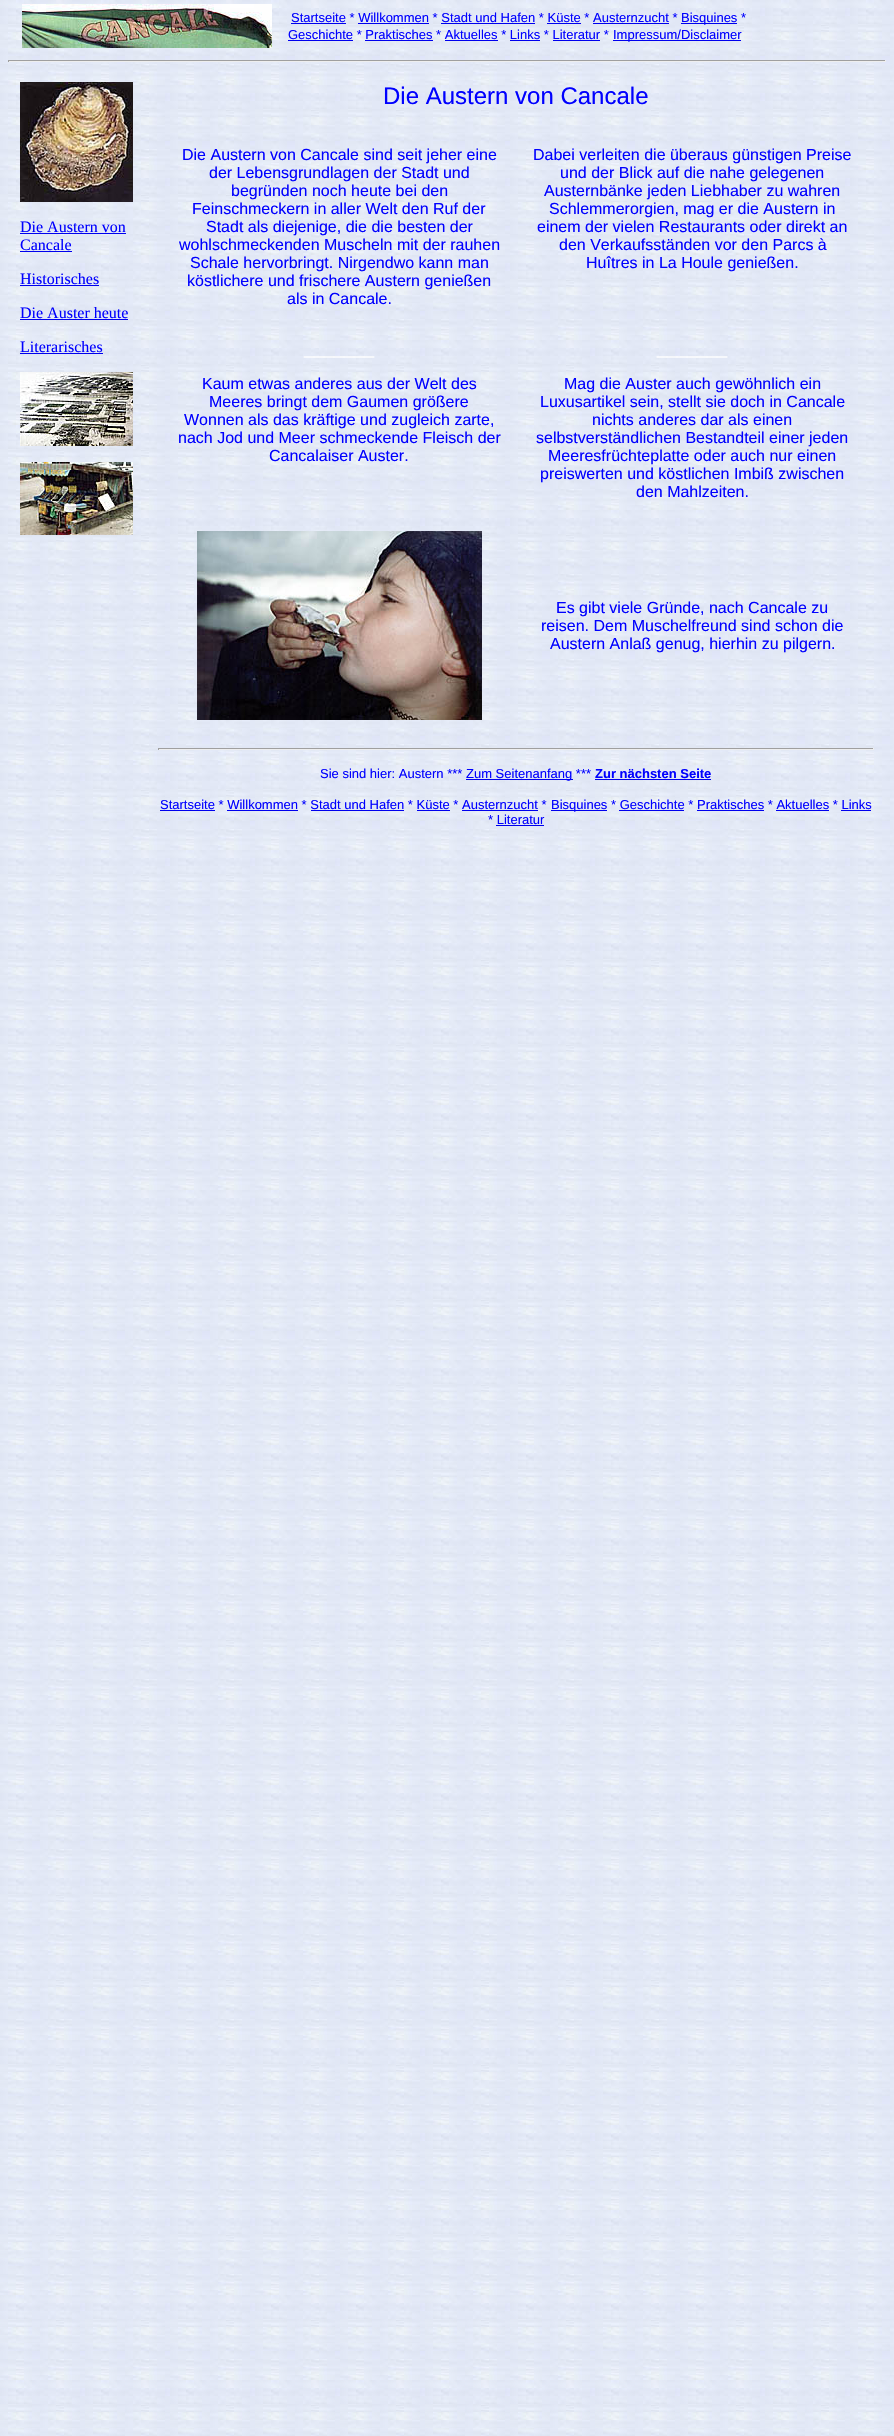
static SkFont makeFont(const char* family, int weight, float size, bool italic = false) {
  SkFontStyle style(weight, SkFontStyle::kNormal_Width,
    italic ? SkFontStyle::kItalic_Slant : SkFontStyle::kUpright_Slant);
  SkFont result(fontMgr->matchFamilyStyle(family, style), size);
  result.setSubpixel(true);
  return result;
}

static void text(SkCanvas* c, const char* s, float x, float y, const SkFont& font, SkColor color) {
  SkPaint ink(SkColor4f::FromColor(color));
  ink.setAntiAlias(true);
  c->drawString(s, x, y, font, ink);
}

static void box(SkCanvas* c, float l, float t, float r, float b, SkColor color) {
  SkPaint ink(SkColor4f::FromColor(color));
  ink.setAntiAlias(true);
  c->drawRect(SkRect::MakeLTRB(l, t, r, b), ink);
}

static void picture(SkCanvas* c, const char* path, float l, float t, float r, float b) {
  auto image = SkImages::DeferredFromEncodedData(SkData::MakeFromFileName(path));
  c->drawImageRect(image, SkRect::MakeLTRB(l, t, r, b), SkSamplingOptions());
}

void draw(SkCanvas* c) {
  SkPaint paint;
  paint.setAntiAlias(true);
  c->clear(0xffffffff);
  picture(c, "img_01.png", 0, 0, 894, 2436);
  picture(c, "img_02.png", 22, 4, 272, 48);
  SkFont face1 = makeFont("Liberation Sans", 400, 13);
  text(c, "Startseite * Willkommen * Stadt und Hafen * Küste * Austernzucht *", 291, 22, face1, 0xff0000ff);
  box(c, 291, 23, 346, 24, 0xff0000ee);
  box(c, 681, 23, 737, 24, 0xff0000ee);
  text(c, "Bisquines *", 681, 22, face1, 0xff0000ff);
  box(c, 358, 23, 429, 24, 0xff0000ee);
  box(c, 441, 23, 535, 24, 0xff0000ee);
  box(c, 547, 23, 581, 24, 0xff0000ee);
  box(c, 593, 23, 669, 24, 0xff0000ee);
  text(c, "Geschichte * Praktisches * Aktuelles * Links * Literatur *", 288, 39, face1, 0xff0000ff);
  box(c, 288, 40, 353, 41, 0xff0000ee);
  box(c, 613, 40, 741, 41, 0xff0000ee);
  text(c, "Impressum/Disclaimer", 613, 39, face1, 0xff0000ff);
  box(c, 365, 40, 433, 41, 0xff0000ee);
  box(c, 445, 40, 498, 41, 0xff0000ee);
  box(c, 510, 40, 540, 41, 0xff0000ee);
  box(c, 553, 40, 600, 41, 0xff0000ee);
  box(c, 8, 60, 886, 61, 0xff9f9f9f);
  box(c, 885, 60, 886, 62, 0xffeeeeee);
  box(c, 8, 61, 886, 62, 0xffeeeeee);
  box(c, 8, 60, 9, 62, 0xff9f9f9f);
  picture(c, "img_03.png", 20, 82, 133, 202);
  SkFont face2 = makeFont("Liberation Serif", 400, 16);
  text(c, "Die Austern von", 20, 232, face2, 0xff0000ff);
  box(c, 20, 233, 126, 234, 0xff0000ee);
  text(c, "Cancale", 20, 250, face2, 0xff0000ff);
  box(c, 20, 251, 72, 252, 0xff0000ee);
  text(c, "Historisches", 20, 284, face2, 0xff0000ff);
  box(c, 20, 285, 99, 286, 0xff0000ee);
  text(c, "Die Auster heute", 20, 318, face2, 0xff0000ff);
  box(c, 20, 319, 128, 320, 0xff0000ee);
  text(c, "Literarisches", 20, 352, face2, 0xff0000ff);
  box(c, 20, 353, 103, 354, 0xff0000ee);
  picture(c, "img_04.png", 20, 372, 133, 446);
  picture(c, "img_05.png", 20, 462, 133, 535);
  SkFont face3 = makeFont("Liberation Sans", 400, 24);
  text(c, "Die Austern von Cancale", 383, 104, face3, 0xff0000ff);
  SkFont face4 = makeFont("Liberation Sans", 400, 16);
  text(c, "Die Austern von Cancale sind seit jeher eine", 182, 160, face4, 0xff0000ff);
  text(c, "der Lebensgrundlagen der Stadt und", 209, 178, face4, 0xff0000ff);
  text(c, "begründen noch heute bei den", 231, 196, face4, 0xff0000ff);
  text(c, "Feinschmeckern in aller Welt den Ruf der", 192, 214, face4, 0xff0000ff);
  text(c, "Stadt als diejenige, die die besten der", 206, 232, face4, 0xff0000ff);
  text(c, "wohlschmeckenden Muscheln mit der rauhen", 179, 250, face4, 0xff0000ff);
  text(c, "Schale hervorbringt. Nirgendwo kann man", 190, 268, face4, 0xff0000ff);
  text(c, "köstlichere und frischere Austern genießen", 187, 286, face4, 0xff0000ff);
  text(c, "als in Cancale.", 287, 304, face4, 0xff0000ff);
  text(c, "Dabei verleiten die überaus günstigen Preise", 533, 160, face4, 0xff0000ff);
  text(c, "und der Blick auf die nahe gelegenen", 560, 178, face4, 0xff0000ff);
  text(c, "Austernbänke jeden Liebhaber zu wahren", 544, 196, face4, 0xff0000ff);
  text(c, "Schlemmerorgien, mag er die Austern in", 549, 214, face4, 0xff0000ff);
  text(c, "einem der vielen Restaurants oder direkt an", 537, 232, face4, 0xff0000ff);
  text(c, "den Verkaufsständen vor den Parcs à", 559, 250, face4, 0xff0000ff);
  text(c, "Huîtres in La Houle genießen.", 586, 268, face4, 0xff0000ff);
  SkFont face5 = makeFont("Liberation Sans", 400, 18);
  text(c, "_______", 304, 354, face5, 0xffffffff);
  text(c, "Kaum etwas anderes aus der Welt des", 202, 389, face4, 0xff0000ff);
  text(c, "Meeres bringt dem Gaumen größere", 209, 407, face4, 0xff0000ff);
  text(c, "Wonnen als das kräftige und zugleich zarte,", 184, 425, face4, 0xff0000ff);
  text(c, "nach Jod und Meer schmeckende Fleisch der", 178, 443, face4, 0xff0000ff);
  text(c, "Cancalaiser Auster.", 269, 461, face4, 0xff0000ff);
  text(c, "_______", 657, 354, face5, 0xffffffff);
  text(c, "Mag die Auster auch gewöhnlich ein", 564, 389, face4, 0xff0000ff);
  text(c, "Luxusartikel sein, stellt sie doch in Cancale", 540, 407, face4, 0xff0000ff);
  text(c, "nichts anderes dar als einen", 592, 425, face4, 0xff0000ff);
  text(c, "selbstverständlichen Bestandteil einer jeden", 536, 443, face4, 0xff0000ff);
  text(c, "Meeresfrüchteplatte oder auch nur einen", 548, 461, face4, 0xff0000ff);
  text(c, "preiswerten und köstlichen Imbiß zwischen", 540, 479, face4, 0xff0000ff);
  text(c, "den Mahlzeiten.", 636, 497, face4, 0xff0000ff);
  picture(c, "img_06.png", 197, 531, 482, 720);
  text(c, "Es gibt viele Gründe, nach Cancale zu", 556, 613, face4, 0xff0000ff);
  text(c, "reisen. Dem Muschelfreund sind schon die", 541, 631, face4, 0xff0000ff);
  text(c, "Austern Anlaß genug, hierhin zu pilgern.", 550, 649, face4, 0xff0000ff);
  box(c, 158, 748, 874, 749, 0xff9f9f9f);
  box(c, 873, 748, 874, 750, 0xffeeeeee);
  box(c, 158, 749, 874, 750, 0xffeeeeee);
  box(c, 158, 748, 159, 750, 0xff9f9f9f);
  text(c, "Sie sind hier: Austern ***", 320, 778, face1, 0xff0000ff);
  box(c, 466, 779, 573, 780, 0xff0000ee);
  text(c, "Zum Seitenanfang ***", 466, 778, face1, 0xff0000ff);
  SkFont face6 = makeFont("Liberation Sans", 700, 13);
  text(c, "Zur nächsten Seite", 595, 778, face6, 0xff0000ff);
  box(c, 595, 779, 711, 780, 0xff0000ee);
  text(c, "Startseite * Willkommen * Stadt und Hafen * Küste * Austernzucht *", 160, 809, face1, 0xff0000ff);
  box(c, 160, 810, 215, 811, 0xff0000ee);
  box(c, 551, 810, 607, 811, 0xff0000ee);
  text(c, "Bisquines * Geschichte * Praktisches * Aktuelles * Links", 551, 809, face1, 0xff0000ff);
  box(c, 227, 810, 298, 811, 0xff0000ee);
  box(c, 311, 810, 404, 811, 0xff0000ee);
  box(c, 417, 810, 450, 811, 0xff0000ee);
  box(c, 462, 810, 538, 811, 0xff0000ee);
  box(c, 619, 810, 684, 811, 0xff0000ee);
  box(c, 697, 810, 764, 811, 0xff0000ee);
  box(c, 776, 810, 829, 811, 0xff0000ee);
  box(c, 841, 810, 871, 811, 0xff0000ee);
  text(c, "* Literatur", 488, 824, face1, 0xff0000ff);
  box(c, 496, 825, 544, 826, 0xff0000ee);
}
